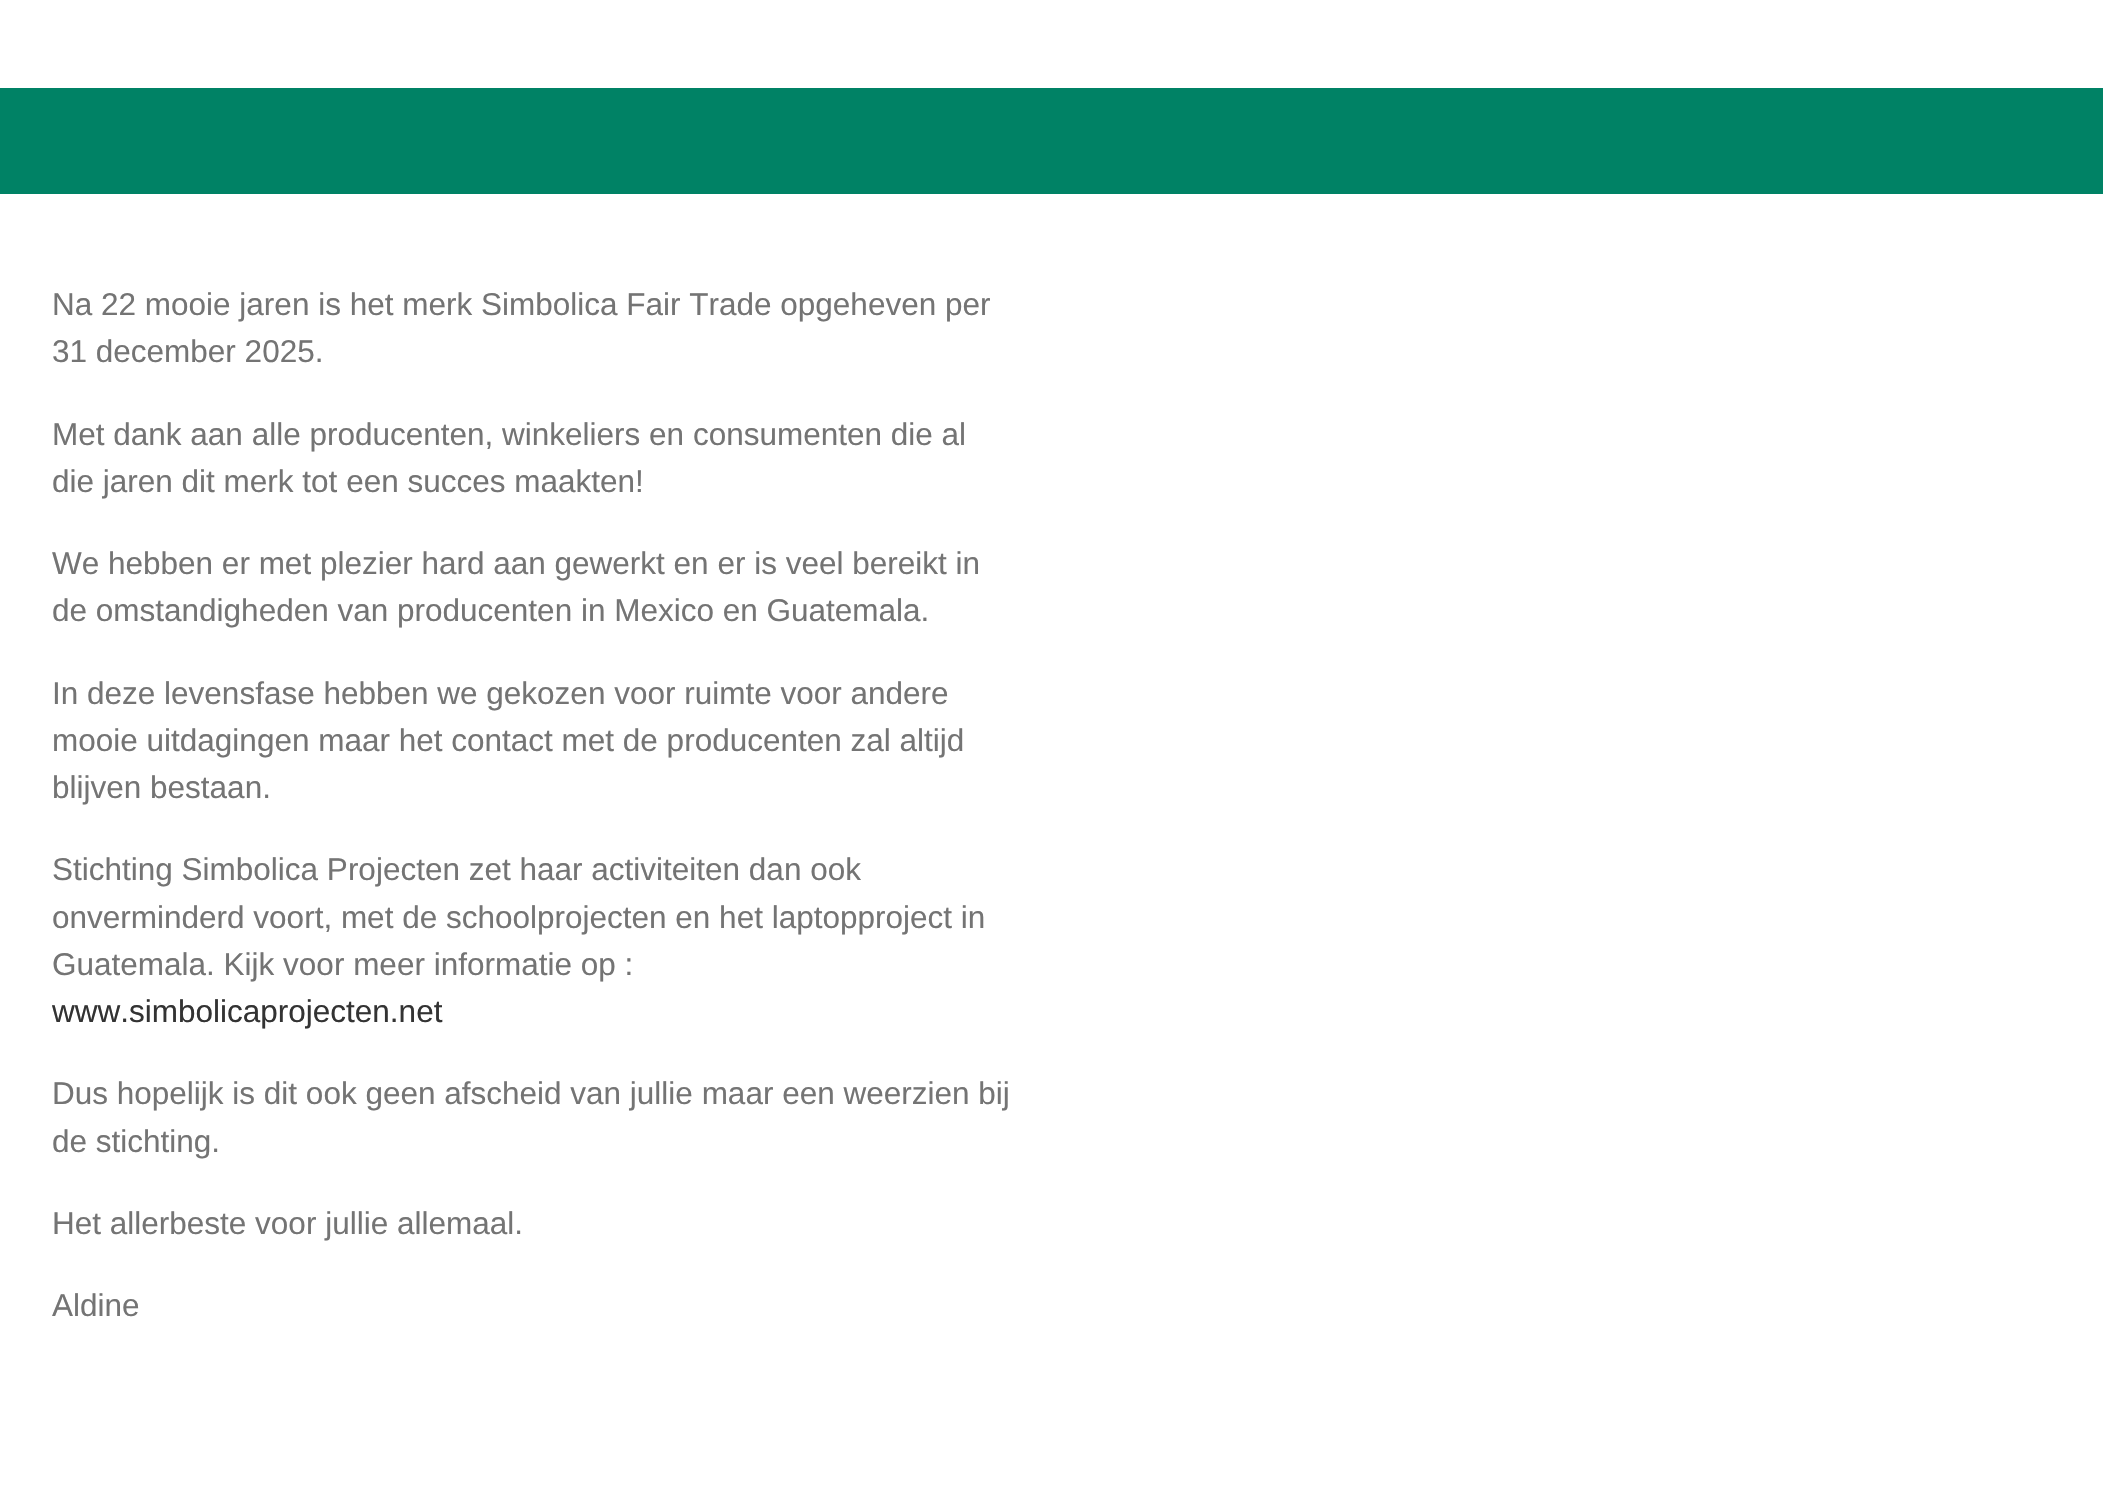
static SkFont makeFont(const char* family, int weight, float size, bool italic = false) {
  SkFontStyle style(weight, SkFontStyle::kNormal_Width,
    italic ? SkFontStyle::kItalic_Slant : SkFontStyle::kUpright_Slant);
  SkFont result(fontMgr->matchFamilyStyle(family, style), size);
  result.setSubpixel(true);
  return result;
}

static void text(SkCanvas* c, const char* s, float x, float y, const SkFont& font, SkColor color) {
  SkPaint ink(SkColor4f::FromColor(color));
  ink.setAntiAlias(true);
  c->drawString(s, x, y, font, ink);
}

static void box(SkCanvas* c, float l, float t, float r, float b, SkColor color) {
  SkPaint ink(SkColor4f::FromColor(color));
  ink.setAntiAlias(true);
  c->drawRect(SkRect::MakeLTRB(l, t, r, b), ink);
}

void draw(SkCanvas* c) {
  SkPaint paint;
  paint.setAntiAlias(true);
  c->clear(0xffffffff);
  box(c, 0, 88, 2103, 194, 0xff008265);
  SkFont face1 = makeFont("Liberation Sans", 400, 31.5f);
  text(c, "Na 22 mooie jaren is het merk Simbolica Fair Trade opgeheven per", 52, 315, face1, 0xff747474);
  text(c, "31 december 2025.", 52, 362, face1, 0xff747474);
  text(c, "Met dank aan alle producenten, winkeliers en consumenten die al", 52, 445, face1, 0xff747474);
  text(c, "die jaren dit merk tot een succes maakten!", 52, 492, face1, 0xff747474);
  text(c, "We hebben er met plezier hard aan gewerkt en er is veel bereikt in", 52, 574, face1, 0xff747474);
  text(c, "de omstandigheden van producenten in Mexico en Guatemala.", 52, 621, face1, 0xff747474);
  text(c, "In deze levensfase hebben we gekozen voor ruimte voor andere", 52, 704, face1, 0xff747474);
  text(c, "mooie uitdagingen maar het contact met de producenten zal altijd", 52, 751, face1, 0xff747474);
  text(c, "blijven bestaan.", 52, 798, face1, 0xff747474);
  text(c, "Stichting Simbolica Projecten zet haar activiteiten dan ook", 52, 880, face1, 0xff747474);
  text(c, "onverminderd voort, met de schoolprojecten en het laptopproject in", 52, 928, face1, 0xff747474);
  text(c, "Guatemala. Kijk voor meer informatie op :", 52, 975, face1, 0xff747474);
  text(c, "www.simbolicaprojecten.net", 52, 1022, face1, 0xff333333);
  text(c, "Dus hopelijk is dit ook geen afscheid van jullie maar een weerzien bij", 52, 1104, face1, 0xff747474);
  text(c, "de stichting.", 52, 1152, face1, 0xff747474);
  text(c, "Het allerbeste voor jullie allemaal.", 52, 1234, face1, 0xff747474);
  text(c, "Aldine", 52, 1316, face1, 0xff747474);
}
